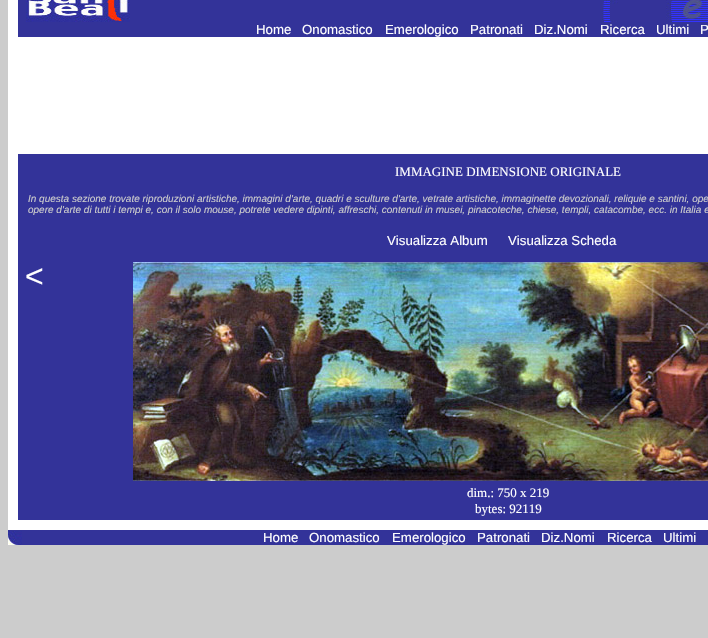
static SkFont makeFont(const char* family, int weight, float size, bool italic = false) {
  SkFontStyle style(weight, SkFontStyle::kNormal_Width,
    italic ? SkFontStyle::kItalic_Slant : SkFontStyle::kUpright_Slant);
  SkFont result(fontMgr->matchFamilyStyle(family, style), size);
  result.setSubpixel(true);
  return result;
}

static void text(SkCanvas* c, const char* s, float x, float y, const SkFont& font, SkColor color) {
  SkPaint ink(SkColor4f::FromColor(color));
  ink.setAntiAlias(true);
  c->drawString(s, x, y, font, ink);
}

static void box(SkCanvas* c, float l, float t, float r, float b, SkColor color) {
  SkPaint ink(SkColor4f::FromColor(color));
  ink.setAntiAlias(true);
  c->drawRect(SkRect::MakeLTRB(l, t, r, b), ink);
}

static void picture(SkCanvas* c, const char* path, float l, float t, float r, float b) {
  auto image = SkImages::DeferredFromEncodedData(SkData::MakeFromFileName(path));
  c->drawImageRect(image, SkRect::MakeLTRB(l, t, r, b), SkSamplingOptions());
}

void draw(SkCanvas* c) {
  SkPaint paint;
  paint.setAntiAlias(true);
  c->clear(0xffcccccc);
  box(c, 8, 0, 708, 530, 0xffffffff);
  box(c, 18, 0, 602, 22, 0xff333399);
  picture(c, "img_01.png", 26, 0, 130, 22);
  picture(c, "img_02.png", 602, 0, 708, 22);
  box(c, 18, 22, 708, 37, 0xff333399);
  SkFont face1 = makeFont("Liberation Sans", 400, 13.25f);
  text(c, "Home", 256, 34, face1, 0xffffffff);
  text(c, "Onomastico", 302, 34, face1, 0xffffffff);
  text(c, "Emerologico", 385, 34, face1, 0xffffffff);
  text(c, "Patronati", 470, 34, face1, 0xffffffff);
  text(c, "Diz.Nomi", 534, 34, face1, 0xffffffff);
  text(c, "Ricerca", 600, 34, face1, 0xffffffff);
  text(c, "Ultimi", 656, 34, face1, 0xffffffff);
  text(c, "P", 700, 34, face1, 0xffffffff);
  box(c, 18, 154, 708, 520, 0xff333399);
  SkFont face2 = makeFont("Liberation Serif", 400, 13);
  text(c, "IMMAGINE DIMENSIONE ORIGINALE", 395, 176, face2, 0xffffffff);
  SkFont face3 = makeFont("Liberation Sans", 400, 10, true);
  text(c, "In questa sezione trovate riproduzioni artistiche, immagini d'arte, quadri e sculture d'arte, vetrate artistiche, immaginette devozionali, reliquie e santini, ope", 28, 202, face3, 0xffcccccc);
  text(c, "opere d'arte di tutti i tempi e, con il solo mouse, potrete vedere dipinti, affreschi, contenuti in musei, pinacoteche, chiese, templi, catacombe, ecc. in Italia e", 28, 213, face3, 0xffcccccc);
  text(c, "Visualizza Album", 387, 245, face1, 0xffffffff);
  text(c, "Visualizza Scheda", 508, 245, face1, 0xffffffff);
  SkFont face4 = makeFont("Liberation Sans", 400, 32);
  text(c, "<", 25, 287, face4, 0xffffffff);
  picture(c, "img_03.png", 133, 262, 708, 481);
  text(c, "dim.: 750 x 219", 467, 497, face2, 0xffffffff);
  text(c, "bytes: 92119", 475, 513, face2, 0xffffffff);
  box(c, 8, 530, 708, 545, 0xff333399);
  picture(c, "img_04.png", 8, 531, 22, 545);
  text(c, "Home", 263, 542, face1, 0xffffffff);
  text(c, "Onomastico", 309, 542, face1, 0xffffffff);
  text(c, "Emerologico", 392, 542, face1, 0xffffffff);
  text(c, "Patronati", 477, 542, face1, 0xffffffff);
  text(c, "Diz.Nomi", 541, 542, face1, 0xffffffff);
  text(c, "Ricerca", 607, 542, face1, 0xffffffff);
  text(c, "Ultimi", 663, 542, face1, 0xffffffff);
}
